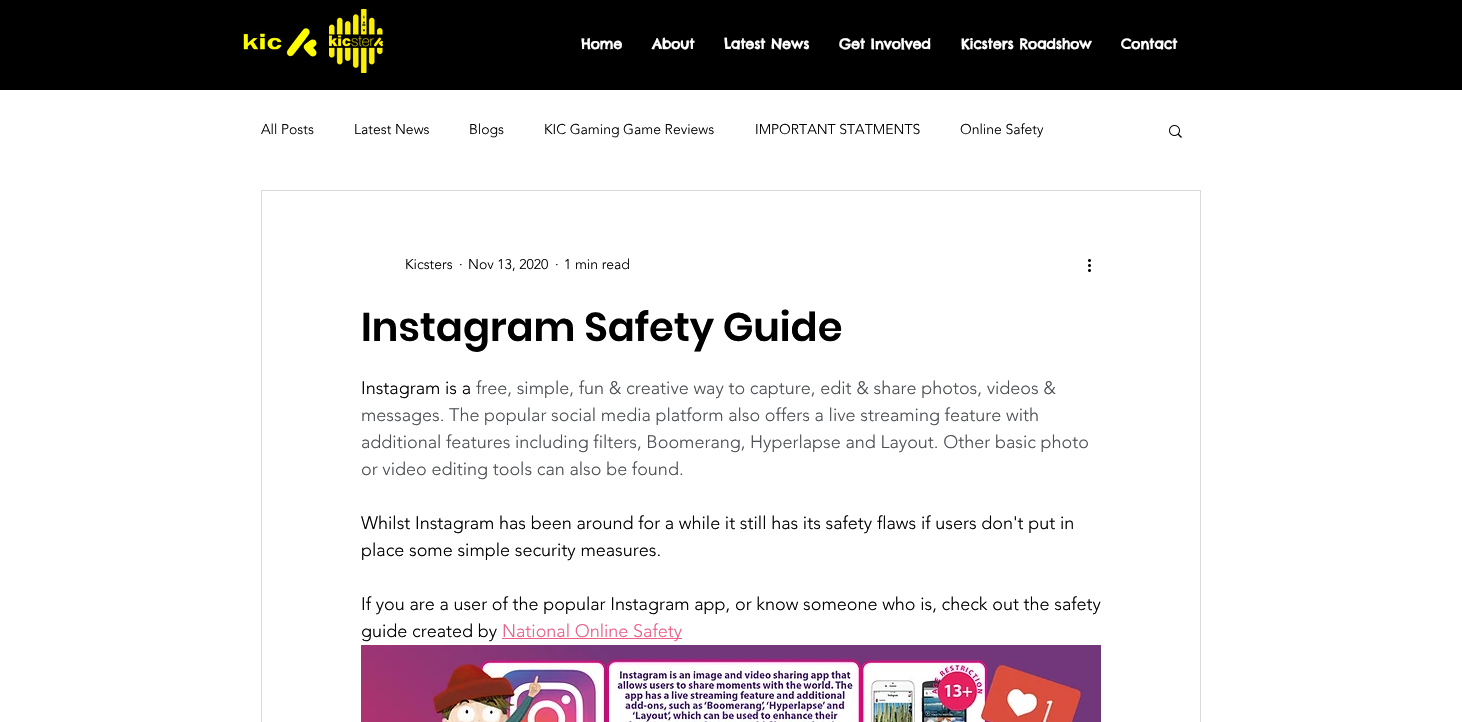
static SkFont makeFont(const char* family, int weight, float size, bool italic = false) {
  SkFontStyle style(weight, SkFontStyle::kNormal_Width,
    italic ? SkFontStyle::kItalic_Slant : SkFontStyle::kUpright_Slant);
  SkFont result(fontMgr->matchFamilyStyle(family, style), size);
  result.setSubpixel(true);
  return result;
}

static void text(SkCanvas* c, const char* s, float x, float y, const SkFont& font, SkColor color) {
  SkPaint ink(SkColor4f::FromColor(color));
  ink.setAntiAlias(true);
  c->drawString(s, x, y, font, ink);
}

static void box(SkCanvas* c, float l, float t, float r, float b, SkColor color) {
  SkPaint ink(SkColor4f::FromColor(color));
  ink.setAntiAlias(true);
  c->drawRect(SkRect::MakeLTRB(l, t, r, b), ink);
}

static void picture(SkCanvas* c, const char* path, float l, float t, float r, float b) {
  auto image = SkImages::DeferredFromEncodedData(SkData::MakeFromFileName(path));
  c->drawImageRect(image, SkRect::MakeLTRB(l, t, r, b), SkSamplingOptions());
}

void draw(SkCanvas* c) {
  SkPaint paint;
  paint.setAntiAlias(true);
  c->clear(0xffffffff);
  box(c, 0, 0, 1462, 90, 0xff000000);
  picture(c, "img_01.png", 243, 28, 317, 57);
  picture(c, "img_02.png", 329, 9, 383, 73);
  SkFont face1 = makeFont("Chelsea Market", 700, 14);
  text(c, "Home", 581, 49, face1, 0xffffffff);
  text(c, "About", 652, 49, face1, 0xffffffff);
  text(c, "Latest News", 724, 49, face1, 0xffffffff);
  text(c, "Get Involved", 839, 49, face1, 0xffffffff);
  text(c, "Kicsters Roadshow", 961, 49, face1, 0xffffffff);
  text(c, "Contact", 1121, 49, face1, 0xffffffff);
  SkFont face2 = makeFont("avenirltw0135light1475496", 300, 14);
  text(c, "All Posts", 261, 134, face2, 0xff000000);
  text(c, "Latest News", 354, 134, face2, 0xff000000);
  text(c, "Blogs", 469, 134, face2, 0xff000000);
  text(c, "KIC Gaming Game Reviews", 544, 134, face2, 0xff000000);
  text(c, "IMPORTANT STATMENTS", 755, 134, face2, 0xff000000);
  text(c, "Online Safety", 960, 134, face2, 0xff000000);
  picture(c, "img_03.png", 1169, 125, 1182, 138);
  paint.setStyle(SkPaint::kStroke_Style);
  paint.setStrokeWidth(1);
  paint.setColor(0xffd9d9d9);
  c->drawRect(SkRect::MakeLTRB(261.5f, 190.5f, 1200.5f, 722.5f), paint);
  text(c, "Kicsters", 405, 269, face2, 0xff000000);
  text(c, "·", 459, 269, face2, 0xff000000);
  text(c, "Nov 13, 2020", 468, 269, face2, 0xff000000);
  text(c, "·", 555, 269, face2, 0xff000000);
  text(c, "1 min read", 564, 269, face2, 0xff000000);
  picture(c, "img_04.png", 1088, 259, 1091, 272);
  SkFont face3 = makeFont("Poppins", 600, 40);
  text(c, "Instagram Safety Guide", 361, 341, face3, 0xff000000);
  SkFont face4 = makeFont("avenirltw0135light1475496", 300, 18);
  text(c, "Instagram is a", 361, 394, face4, 0xff000000);
  text(c, "free, simple, fun & creative way to capture, edit & share photos, videos &", 476, 394, face4, 0xff4d5156);
  text(c, "messages. The popular social media platform also offers a live streaming feature with", 361, 421, face4, 0xff4d5156);
  text(c, "additional features including filters, Boomerang, Hyperlapse and Layout. Other basic photo", 361, 448, face4, 0xff4d5156);
  text(c, "or video editing tools can also be found.", 361, 475, face4, 0xff4d5156);
  text(c, "Whilst Instagram has been around for a while it still has its safety flaws if users don't put in", 361, 529, face4, 0xff000000);
  text(c, "place some simple security measures.", 361, 556, face4, 0xff000000);
  text(c, "If you are a user of the popular Instagram app, or know someone who is, check out the safety", 361, 610, face4, 0xff000000);
  text(c, "guide created by", 361, 637, face4, 0xff000000);
  box(c, 502, 638, 682, 639, 0xffec5e87);
  text(c, "National Online Safety", 502, 637, face4, 0xffec5e87);
  picture(c, "img_05.png", 361, 645, 1101, 722);
}
